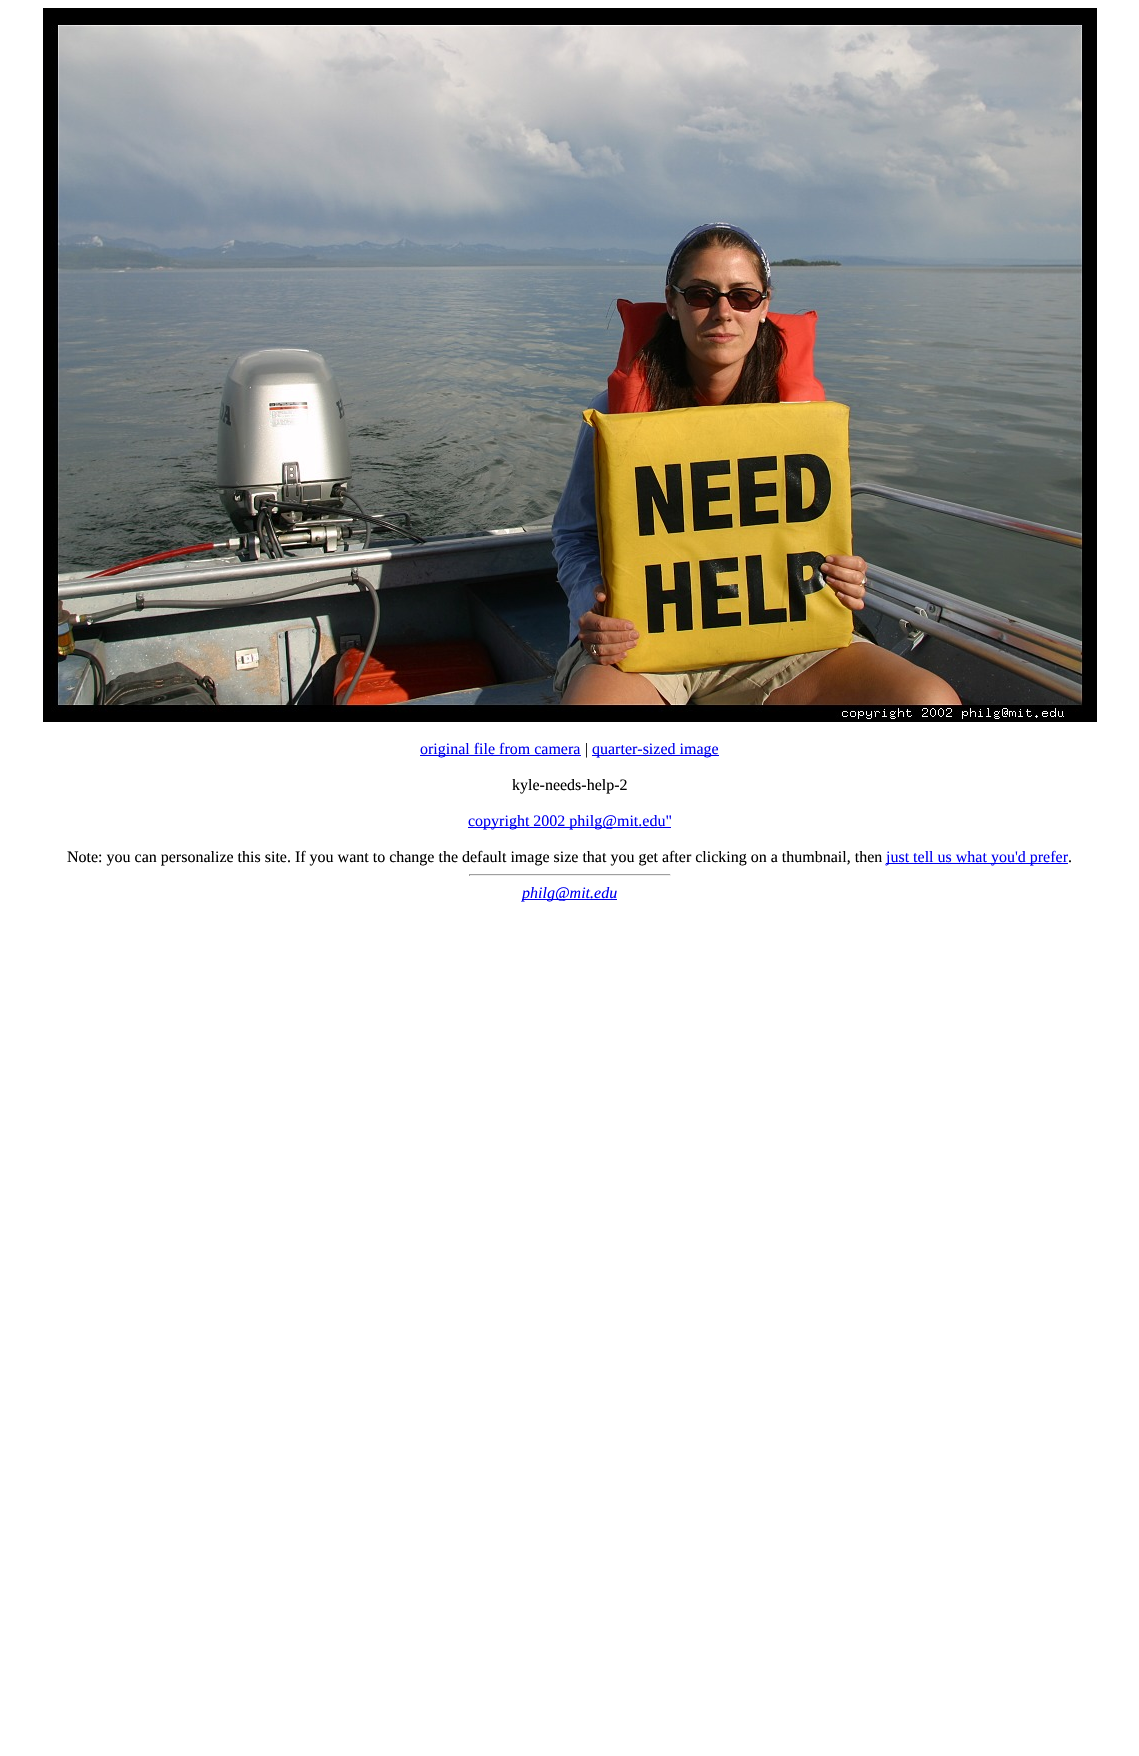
static SkFont makeFont(const char* family, int weight, float size, bool italic = false) {
  SkFontStyle style(weight, SkFontStyle::kNormal_Width,
    italic ? SkFontStyle::kItalic_Slant : SkFontStyle::kUpright_Slant);
  SkFont result(fontMgr->matchFamilyStyle(family, style), size);
  result.setSubpixel(true);
  return result;
}

static void text(SkCanvas* c, const char* s, float x, float y, const SkFont& font, SkColor color) {
  SkPaint ink(SkColor4f::FromColor(color));
  ink.setAntiAlias(true);
  c->drawString(s, x, y, font, ink);
}

static void box(SkCanvas* c, float l, float t, float r, float b, SkColor color) {
  SkPaint ink(SkColor4f::FromColor(color));
  ink.setAntiAlias(true);
  c->drawRect(SkRect::MakeLTRB(l, t, r, b), ink);
}

static void picture(SkCanvas* c, const char* path, float l, float t, float r, float b) {
  auto image = SkImages::DeferredFromEncodedData(SkData::MakeFromFileName(path));
  c->drawImageRect(image, SkRect::MakeLTRB(l, t, r, b), SkSamplingOptions());
}

void draw(SkCanvas* c) {
  SkPaint paint;
  paint.setAntiAlias(true);
  c->clear(0xffffffff);
  picture(c, "img_01.png", 43, 8, 1097, 722);
  box(c, 420, 755, 581, 756, 0xff0000ee);
  SkFont face1 = makeFont("Liberation Serif", 400, 16);
  text(c, "original file from camera", 420, 754, face1, 0xff0000ee);
  text(c, "|", 585, 754, face1, 0xff000000);
  box(c, 592, 755, 719, 756, 0xff0000ee);
  text(c, "quarter-sized image", 592, 754, face1, 0xff0000ee);
  text(c, "kyle-needs-help-2", 512, 790, face1, 0xff000000);
  box(c, 468, 827, 671, 828, 0xff0000ee);
  text(c, "copyright 2002 philg@mit.edu\"", 468, 826, face1, 0xff0000ee);
  text(c, "Note: you can personalize this site. If you want to change the default image size that you get after clicking on a thumbnail, then", 67, 862, face1, 0xff000000);
  box(c, 886, 863, 1068, 864, 0xff0000ee);
  text(c, "just tell us what you'd prefer", 886, 862, face1, 0xff0000ee);
  text(c, ".", 1068, 862, face1, 0xff000000);
  box(c, 469, 874, 671, 875, 0xff9f9f9f);
  box(c, 670, 874, 671, 876, 0xffeeeeee);
  box(c, 469, 875, 671, 876, 0xffeeeeee);
  box(c, 469, 874, 470, 876, 0xff9f9f9f);
  box(c, 522, 899, 617, 900, 0xff0000ee);
  SkFont face2 = makeFont("Liberation Serif", 400, 16, true);
  text(c, "philg@mit.edu", 522, 898, face2, 0xff0000ee);
}
